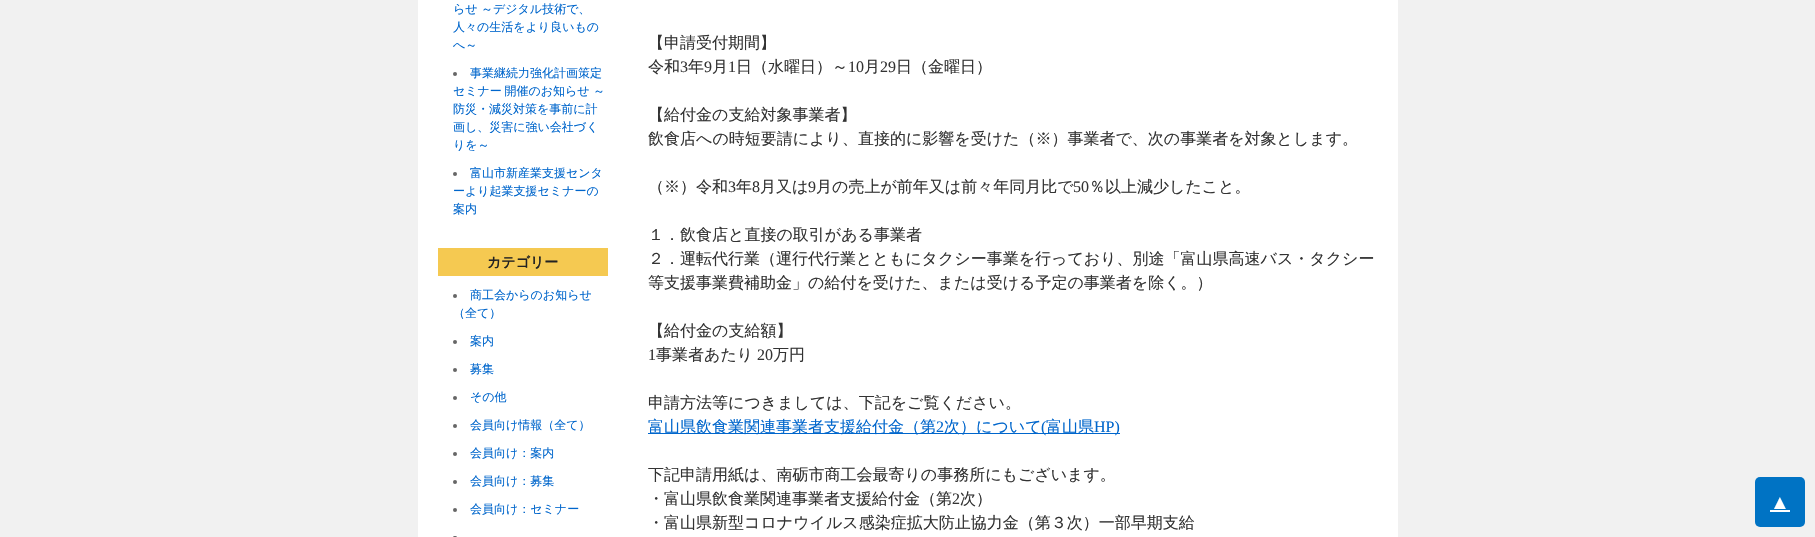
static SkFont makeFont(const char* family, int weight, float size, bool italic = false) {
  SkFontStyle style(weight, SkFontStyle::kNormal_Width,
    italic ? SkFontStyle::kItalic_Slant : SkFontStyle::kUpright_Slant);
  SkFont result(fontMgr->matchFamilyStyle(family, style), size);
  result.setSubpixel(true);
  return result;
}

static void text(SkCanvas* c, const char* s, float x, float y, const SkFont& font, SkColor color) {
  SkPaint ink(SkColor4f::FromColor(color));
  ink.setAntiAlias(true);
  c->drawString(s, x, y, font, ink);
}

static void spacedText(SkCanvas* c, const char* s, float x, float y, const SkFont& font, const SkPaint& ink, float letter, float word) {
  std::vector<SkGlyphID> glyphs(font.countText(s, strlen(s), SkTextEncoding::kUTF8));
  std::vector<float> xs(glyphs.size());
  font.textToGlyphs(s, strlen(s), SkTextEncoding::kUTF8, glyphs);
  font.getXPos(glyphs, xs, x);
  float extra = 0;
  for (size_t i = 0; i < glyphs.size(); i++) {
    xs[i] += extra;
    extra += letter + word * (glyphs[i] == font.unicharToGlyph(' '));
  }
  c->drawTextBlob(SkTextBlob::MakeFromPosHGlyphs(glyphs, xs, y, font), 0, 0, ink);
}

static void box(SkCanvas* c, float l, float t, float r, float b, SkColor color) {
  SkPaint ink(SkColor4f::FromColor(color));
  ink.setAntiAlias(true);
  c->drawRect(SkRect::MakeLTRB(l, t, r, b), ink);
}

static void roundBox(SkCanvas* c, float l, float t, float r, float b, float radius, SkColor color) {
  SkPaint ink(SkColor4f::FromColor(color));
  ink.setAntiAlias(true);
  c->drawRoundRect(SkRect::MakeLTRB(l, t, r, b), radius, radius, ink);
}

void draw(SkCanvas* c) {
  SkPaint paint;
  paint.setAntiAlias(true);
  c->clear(0xfff1f1f1);
  box(c, 418, 0, 1398, 537, 0xffffffff);
  SkFont face1 = makeFont("WenQuanYi Zen Hei", 500, 12);
  text(c, "らせ", 453, 13, face1, 0xff0066cc);
  text(c, "～デジタル技術で、", 481, 13, face1, 0xff0066cc);
  text(c, "人々の生活をより良いもの", 453, 31, face1, 0xff0066cc);
  text(c, "へ～", 453, 49, face1, 0xff0066cc);
  paint.setColor(0xff666666);
  c->drawCircle(455, 74, 2, paint);
  text(c, "事業継続力強化計画策定", 470, 77, face1, 0xff0066cc);
  paint.setColor(0xff0066cc);
  spacedText(c, "セミナー 開催のお知らせ", 453, 95, face1, paint, 0, -1);
  text(c, "～", 593, 95, face1, 0xff0066cc);
  text(c, "防災・減災対策を事前に計", 453, 113, face1, 0xff0066cc);
  text(c, "画し、災害に強い会社づく", 453, 131, face1, 0xff0066cc);
  text(c, "りを～", 453, 149, face1, 0xff0066cc);
  paint.setColor(0xff666666);
  c->drawCircle(455, 174, 2, paint);
  text(c, "富山市新産業支援センタ", 470, 177, face1, 0xff0066cc);
  text(c, "ーより起業支援セミナーの", 453, 195, face1, 0xff0066cc);
  text(c, "案内", 453, 213, face1, 0xff0066cc);
  box(c, 438, 248, 608, 276, 0xfff5c951);
  SkFont face2 = makeFont("WenQuanYi Zen Hei", 700, 14);
  text(c, "カテゴリー", 487, 267, face2, 0xff222222);
  c->drawCircle(455, 296, 2, paint);
  text(c, "商工会からのお知らせ", 470, 299, face1, 0xff0066cc);
  text(c, "（全て）", 453, 317, face1, 0xff0066cc);
  c->drawCircle(455, 342, 2, paint);
  text(c, "案内", 470, 345, face1, 0xff0066cc);
  c->drawCircle(455, 370, 2, paint);
  text(c, "募集", 470, 373, face1, 0xff0066cc);
  c->drawCircle(455, 398, 2, paint);
  text(c, "その他", 470, 401, face1, 0xff0066cc);
  c->drawCircle(455, 426, 2, paint);
  text(c, "会員向け情報（全て）", 470, 429, face1, 0xff0066cc);
  c->drawCircle(455, 454, 2, paint);
  text(c, "会員向け：案内", 470, 457, face1, 0xff0066cc);
  c->drawCircle(455, 482, 2, paint);
  text(c, "会員向け：募集", 470, 485, face1, 0xff0066cc);
  c->drawCircle(455, 510, 2, paint);
  text(c, "会員向け：セミナー", 470, 513, face1, 0xff0066cc);
  roundBox(c, 453, 536, 457, 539, 2, 0xff666666);
  SkFont face3 = makeFont("WenQuanYi Zen Hei", 500, 16);
  text(c, "【申請受付期間】", 648, 48, face3, 0xff333333);
  text(c, "令和", 648, 72, face3, 0xff333333);
  SkFont face4 = makeFont("Liberation Serif", 400, 16);
  text(c, "3", 680, 72, face4, 0xff333333);
  text(c, "年", 688, 72, face3, 0xff333333);
  text(c, "9", 704, 72, face4, 0xff333333);
  text(c, "月", 712, 72, face3, 0xff333333);
  text(c, "1", 728, 72, face4, 0xff333333);
  text(c, "日（水曜日）～", 736, 72, face3, 0xff333333);
  text(c, "10", 848, 72, face4, 0xff333333);
  text(c, "月", 864, 72, face3, 0xff333333);
  text(c, "29", 880, 72, face4, 0xff333333);
  text(c, "日（金曜日）", 896, 72, face3, 0xff333333);
  text(c, "【給付金の支給対象事業者】", 648, 120, face3, 0xff333333);
  text(c, "飲食店への時短要請により、直接的に影響を受けた（※）事業者で、次の事業者を対象とします。", 648, 144, face3, 0xff333333);
  text(c, "（※）令和", 648, 192, face3, 0xff333333);
  text(c, "3", 728, 192, face4, 0xff333333);
  text(c, "年", 736, 192, face3, 0xff333333);
  text(c, "8", 752, 192, face4, 0xff333333);
  text(c, "月又は", 760, 192, face3, 0xff333333);
  text(c, "9", 808, 192, face4, 0xff333333);
  text(c, "月の売上が前年又は前々年同月比で", 816, 192, face3, 0xff333333);
  text(c, "50", 1073, 192, face4, 0xff333333);
  text(c, "％以上減少したこと。", 1089, 192, face3, 0xff333333);
  text(c, "１．飲食店と直接の取引がある事業者", 648, 240, face3, 0xff333333);
  text(c, "２．運転代行業（運行代行業とともにタクシー事業を行っており、別途「富山県高速バス・タクシー", 648, 264, face3, 0xff333333);
  text(c, "等支援事業費補助金」の給付を受けた、または受ける予定の事業者を除く。）", 648, 288, face3, 0xff333333);
  text(c, "【給付金の支給額】", 648, 336, face3, 0xff333333);
  text(c, "1", 648, 360, face4, 0xff333333);
  text(c, "事業者あたり", 656, 360, face3, 0xff333333);
  text(c, "20", 757, 360, face4, 0xff333333);
  text(c, "万円", 773, 360, face3, 0xff333333);
  text(c, "申請方法等につきましては、下記をご覧ください。", 648, 408, face3, 0xff333333);
  box(c, 648, 433, 1120, 434, 0xff0066cc);
  text(c, "富山県飲食業関連事業者支援給付金（第", 648, 432, face3, 0xff0066cc);
  text(c, "2", 936, 432, face4, 0xff0066cc);
  text(c, "次）について", 944, 432, face3, 0xff0066cc);
  text(c, "(", 1041, 432, face4, 0xff0066cc);
  text(c, "富山県", 1046, 432, face3, 0xff0066cc);
  text(c, "HP)", 1094, 432, face4, 0xff0066cc);
  text(c, "下記申請用紙は、南砺市商工会最寄りの事務所にもございます。", 648, 480, face3, 0xff333333);
  text(c, "・富山県飲食業関連事業者支援給付金（第", 648, 504, face3, 0xff333333);
  text(c, "2", 952, 504, face4, 0xff333333);
  text(c, "次）", 960, 504, face3, 0xff333333);
  text(c, "・富山県新型コロナウイルス感染症拡大防止協力金（第３次）一部早期支給", 648, 528, face3, 0xff333333);
  roundBox(c, 1755, 477, 1805, 527, 5, 0xff0073c4);
  SkFont face5 = makeFont("Liberation Serif", 400, 20);
  text(c, "▲", 1770, 509, face5, 0xffffffff);
  box(c, 1770, 510, 1790, 512, 0xffffffff);
}
